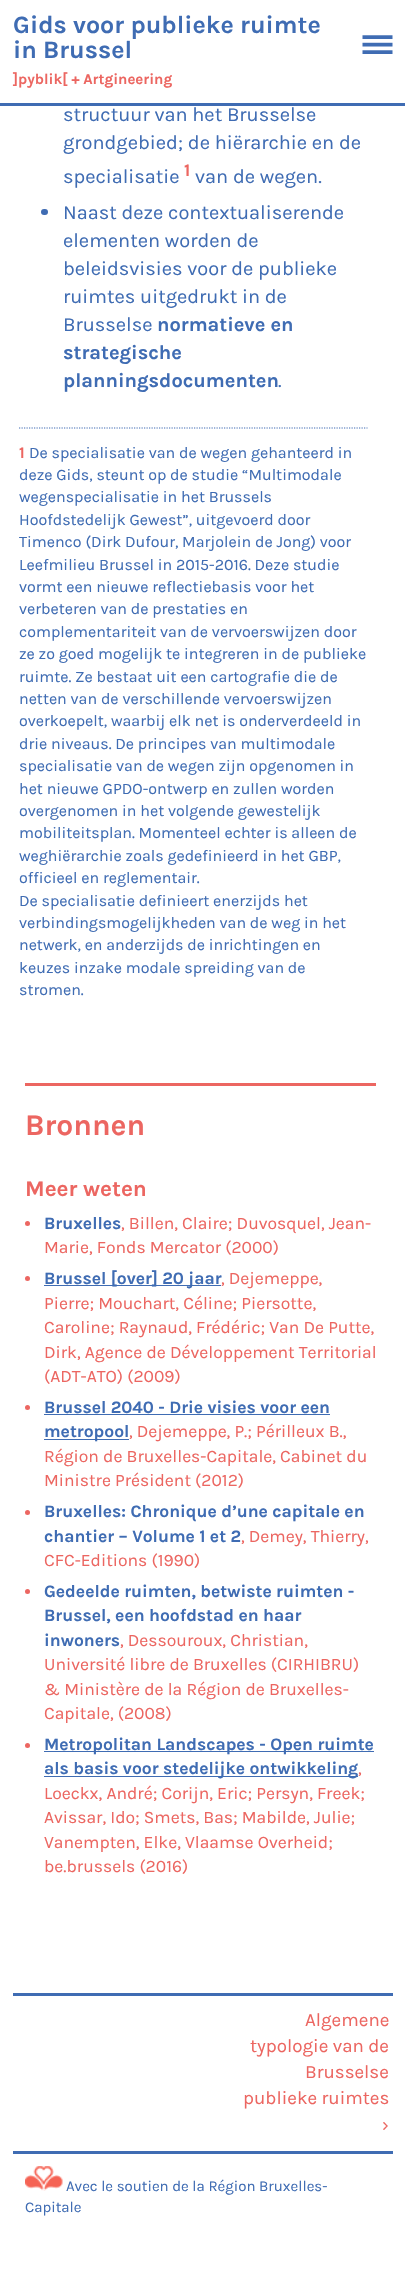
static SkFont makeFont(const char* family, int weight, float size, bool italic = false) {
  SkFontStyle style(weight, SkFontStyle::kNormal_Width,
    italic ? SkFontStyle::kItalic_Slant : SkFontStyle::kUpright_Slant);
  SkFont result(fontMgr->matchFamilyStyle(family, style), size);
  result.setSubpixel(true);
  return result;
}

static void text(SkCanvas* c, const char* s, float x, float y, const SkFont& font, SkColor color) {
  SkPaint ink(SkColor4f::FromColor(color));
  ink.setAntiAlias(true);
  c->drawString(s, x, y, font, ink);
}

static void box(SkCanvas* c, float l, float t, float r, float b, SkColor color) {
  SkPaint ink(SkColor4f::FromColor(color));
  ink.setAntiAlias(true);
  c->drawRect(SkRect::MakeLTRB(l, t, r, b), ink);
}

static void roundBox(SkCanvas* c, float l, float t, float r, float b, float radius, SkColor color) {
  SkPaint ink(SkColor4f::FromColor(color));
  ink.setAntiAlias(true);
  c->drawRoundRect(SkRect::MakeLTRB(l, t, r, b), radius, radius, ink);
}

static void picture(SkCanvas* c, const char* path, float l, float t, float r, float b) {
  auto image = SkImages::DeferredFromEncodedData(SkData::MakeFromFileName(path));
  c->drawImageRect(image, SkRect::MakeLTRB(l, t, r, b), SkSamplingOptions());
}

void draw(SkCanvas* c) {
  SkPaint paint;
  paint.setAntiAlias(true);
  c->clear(0xffffffff);
  box(c, 0, 103, 405, 106, 0xff3f6cb3);
  SkFont face1 = makeFont("Karla", 700, 25);
  text(c, "Gids voor publieke ruimte", 13, 33, face1, 0xff3f6cb3);
  text(c, "in Brussel", 13, 58, face1, 0xff3f6cb3);
  SkFont face2 = makeFont("Karla", 700, 15);
  text(c, "]pyblik[ + Artgineering", 13, 84, face2, 0xffec6661);
  picture(c, "img_01.png", 362, 35, 393, 54);
  SkFont face3 = makeFont("Karla", 400, 20);
  text(c, "structuur van het Brusselse", 63, 121, face3, 0xff3f6cb3);
  text(c, "grondgebied; de hiërarchie en de", 63, 149, face3, 0xff3f6cb3);
  text(c, "specialisatie", 63, 183, face3, 0xff3f6cb3);
  SkFont face4 = makeFont("Karla", 700, 17.5f);
  text(c, "1", 184, 176, face4, 0xffec6661);
  text(c, "van de wegen.", 195, 183, face3, 0xff3f6cb3);
  roundBox(c, 41, 209, 48, 215, 3, 0xff3f6cb3);
  text(c, "Naast deze contextualiserende", 63, 219, face3, 0xff3f6cb3);
  text(c, "elementen worden de", 63, 247, face3, 0xff3f6cb3);
  text(c, "beleidsvisies voor de publieke", 63, 275, face3, 0xff3f6cb3);
  text(c, "ruimtes uitgedrukt in de", 63, 303, face3, 0xff3f6cb3);
  text(c, "Brusselse", 63, 331, face3, 0xff3f6cb3);
  SkFont face5 = makeFont("Karla", 700, 20);
  text(c, "normatieve en", 157, 331, face5, 0xff3f6cb3);
  text(c, "strategische", 63, 359, face5, 0xff3f6cb3);
  text(c, "planningsdocumenten", 63, 387, face5, 0xff3f6cb3);
  text(c, ".", 278, 387, face3, 0xff3f6cb3);
  paint.setStyle(SkPaint::kStroke_Style);
  paint.setStrokeWidth(1.2f);
  paint.setColor(0xff3f6cb3);
  paint.setPathEffect(SkDashPathEffect::Make({{1.25f, 1.25f}}, 0));
  c->drawPath(SkPathBuilder().moveTo(19, 428).lineTo(367.5f, 428).detach(), paint);
  paint.setPathEffect(nullptr);
  SkFont face6 = makeFont("Karla", 700, 16);
  text(c, "1", 19, 458, face6, 0xffec6661);
  SkFont face7 = makeFont("Karla", 400, 16);
  text(c, "De specialisatie van de wegen gehanteerd in", 29, 458, face7, 0xff3f6cb3);
  text(c, "deze Gids, steunt op de studie “Multimodale", 19, 480, face7, 0xff3f6cb3);
  text(c, "wegenspecialisatie in het Brussels", 19, 502, face7, 0xff3f6cb3);
  text(c, "Hoofdstedelijk Gewest”, uitgevoerd door", 19, 525, face7, 0xff3f6cb3);
  text(c, "Timenco (Dirk Dufour, Marjolein de Jong) voor", 19, 547, face7, 0xff3f6cb3);
  text(c, "Leefmilieu Brussel in 2015-2016. Deze studie", 19, 570, face7, 0xff3f6cb3);
  text(c, "vormt een nieuwe reflectiebasis voor het", 19, 592, face7, 0xff3f6cb3);
  text(c, "verbeteren van de prestaties en", 19, 614, face7, 0xff3f6cb3);
  text(c, "complementariteit van de vervoerswijzen door", 19, 637, face7, 0xff3f6cb3);
  text(c, "ze zo goed mogelijk te integreren in de publieke", 19, 659, face7, 0xff3f6cb3);
  text(c, "ruimte. Ze bestaat uit een cartografie die de", 19, 682, face7, 0xff3f6cb3);
  text(c, "netten van de verschillende vervoerswijzen", 19, 704, face7, 0xff3f6cb3);
  text(c, "overkoepelt, waarbij elk net is onderverdeeld in", 19, 726, face7, 0xff3f6cb3);
  text(c, "drie niveaus. De principes van multimodale", 19, 749, face7, 0xff3f6cb3);
  text(c, "specialisatie van de wegen zijn opgenomen in", 19, 771, face7, 0xff3f6cb3);
  text(c, "het nieuwe GPDO-ontwerp en zullen worden", 19, 794, face7, 0xff3f6cb3);
  text(c, "overgenomen in het volgende gewestelijk", 19, 816, face7, 0xff3f6cb3);
  text(c, "mobiliteitsplan. Momenteel echter is alleen de", 19, 838, face7, 0xff3f6cb3);
  text(c, "weghiërarchie zoals gedefinieerd in het GBP,", 19, 861, face7, 0xff3f6cb3);
  text(c, "officieel en reglementair.", 19, 883, face7, 0xff3f6cb3);
  text(c, "De specialisatie definieert enerzijds het", 19, 906, face7, 0xff3f6cb3);
  text(c, "verbindingsmogelijkheden van de weg in het", 19, 928, face7, 0xff3f6cb3);
  text(c, "netwerk, en anderzijds de inrichtingen en", 19, 950, face7, 0xff3f6cb3);
  text(c, "keuzes inzake modale spreiding van de", 19, 973, face7, 0xff3f6cb3);
  text(c, "stromen.", 19, 995, face7, 0xff3f6cb3);
  box(c, 25, 1083, 376, 1086, 0xffec6661);
  SkFont face8 = makeFont("Karla", 700, 30);
  text(c, "Bronnen", 25, 1135, face8, 0xffec6661);
  SkFont face9 = makeFont("Karla", 700, 22.5f);
  text(c, "Meer weten", 25, 1196, face9, 0xffec6661);
  paint.setStyle(SkPaint::kFill_Style);
  paint.setColor(0xffec6661);
  c->drawCircle(27.5f, 1223.5f, 2.5f, paint);
  text(c, "Bruxelles", 44, 1229, face4, 0xff3f6cb3);
  SkFont face10 = makeFont("Karla", 400, 17.5f);
  text(c, ", Billen, Claire; Duvosquel, Jean-", 121, 1229, face10, 0xffec6661);
  text(c, "Marie, Fonds Mercator (2000)", 44, 1253, face10, 0xffec6661);
  c->drawCircle(27.5f, 1278.5f, 2.5f, paint);
  box(c, 44, 1285, 221, 1286, 0xff3f6cb3);
  text(c, "Brussel [over] 20 jaar", 44, 1284, face4, 0xff3f6cb3);
  text(c, ", Dejemeppe,", 221, 1284, face10, 0xffec6661);
  text(c, "Pierre; Mouchart, Céline; Piersotte,", 44, 1309, face10, 0xffec6661);
  text(c, "Caroline; Raynaud, Frédéric; Van De Putte,", 44, 1333, face10, 0xffec6661);
  text(c, "Dirk, Agence de Développement Territorial", 44, 1358, face10, 0xffec6661);
  text(c, "(ADT-ATO) (2009)", 44, 1382, face10, 0xffec6661);
  c->drawCircle(27.5f, 1407.5f, 2.5f, paint);
  text(c, "Brussel 2040 - Drie visies voor een", 44, 1413, face4, 0xff3f6cb3);
  box(c, 44, 1414, 330, 1415, 0xff3f6cb3);
  box(c, 44, 1439, 129, 1440, 0xff3f6cb3);
  text(c, "metropool", 44, 1437, face4, 0xff3f6cb3);
  text(c, ", Dejemeppe, P.; Périlleux B.,", 129, 1437, face10, 0xffec6661);
  text(c, "Région de Bruxelles-Capitale, Cabinet du", 44, 1462, face10, 0xffec6661);
  text(c, "Ministre Président (2012)", 44, 1486, face10, 0xffec6661);
  c->drawCircle(27.5f, 1512.5f, 2.5f, paint);
  text(c, "Bruxelles: Chronique d’une capitale en", 44, 1517, face4, 0xff3f6cb3);
  text(c, "chantier – Volume 1 et 2", 44, 1542, face4, 0xff3f6cb3);
  text(c, ", Demey, Thierry,", 241, 1542, face10, 0xffec6661);
  text(c, "CFC-Editions (1990)", 44, 1566, face10, 0xffec6661);
  c->drawCircle(27.5f, 1591.5f, 2.5f, paint);
  text(c, "Gedeelde ruimten, betwiste ruimten -", 44, 1597, face4, 0xff3f6cb3);
  text(c, "Brussel, een hoofdstad en haar", 44, 1621, face4, 0xff3f6cb3);
  text(c, "inwoners", 44, 1646, face4, 0xff3f6cb3);
  text(c, ", Dessouroux, Christian,", 120, 1646, face10, 0xffec6661);
  text(c, "Université libre de Bruxelles (CIRHIBRU)", 44, 1670, face10, 0xffec6661);
  text(c, "& Ministère de la Région de Bruxelles-", 44, 1695, face10, 0xffec6661);
  text(c, "Capitale, (2008)", 44, 1719, face10, 0xffec6661);
  c->drawCircle(27.5f, 1745.5f, 2.5f, paint);
  box(c, 44, 1751, 374, 1752, 0xff3f6cb3);
  text(c, "Metropolitan Landscapes - Open ruimte", 44, 1750, face4, 0xff3f6cb3);
  box(c, 44, 1776, 358, 1777, 0xff3f6cb3);
  text(c, "als basis voor stedelijke ontwikkeling", 44, 1774, face4, 0xff3f6cb3);
  text(c, ",", 358, 1774, face10, 0xffec6661);
  text(c, "Loeckx, André; Corijn, Eric; Persyn, Freek;", 44, 1799, face10, 0xffec6661);
  text(c, "Avissar, Ido; Smets, Bas; Mabilde, Julie;", 44, 1823, face10, 0xffec6661);
  text(c, "Vanempten, Elke, Vlaamse Overheid;", 44, 1848, face10, 0xffec6661);
  text(c, "be.brussels (2016)", 44, 1872, face10, 0xffec6661);
  box(c, 13, 1993, 393, 1996, 0xff3f6cb3);
  SkFont face11 = makeFont("Karla", 400, 18.75f);
  text(c, "Algemene", 305, 2026, face11, 0xffec6661);
  text(c, "typologie van de", 250, 2052, face11, 0xffec6661);
  text(c, "Brusselse", 305, 2078, face11, 0xffec6661);
  text(c, "publieke ruimtes", 243, 2104, face11, 0xffec6661);
  text(c, "›", 382, 2131, face11, 0xffec6661);
  box(c, 13, 2151, 393, 2154, 0xff3f6cb3);
  picture(c, "img_02.png", 25, 2166, 63, 2191);
  SkFont face12 = makeFont("Karla", 400, 15);
  text(c, "Avec le soutien de la Région Bruxelles-", 66, 2191, face12, 0xff3f6cb3);
  text(c, "Capitale", 25, 2212, face12, 0xff3f6cb3);
}
